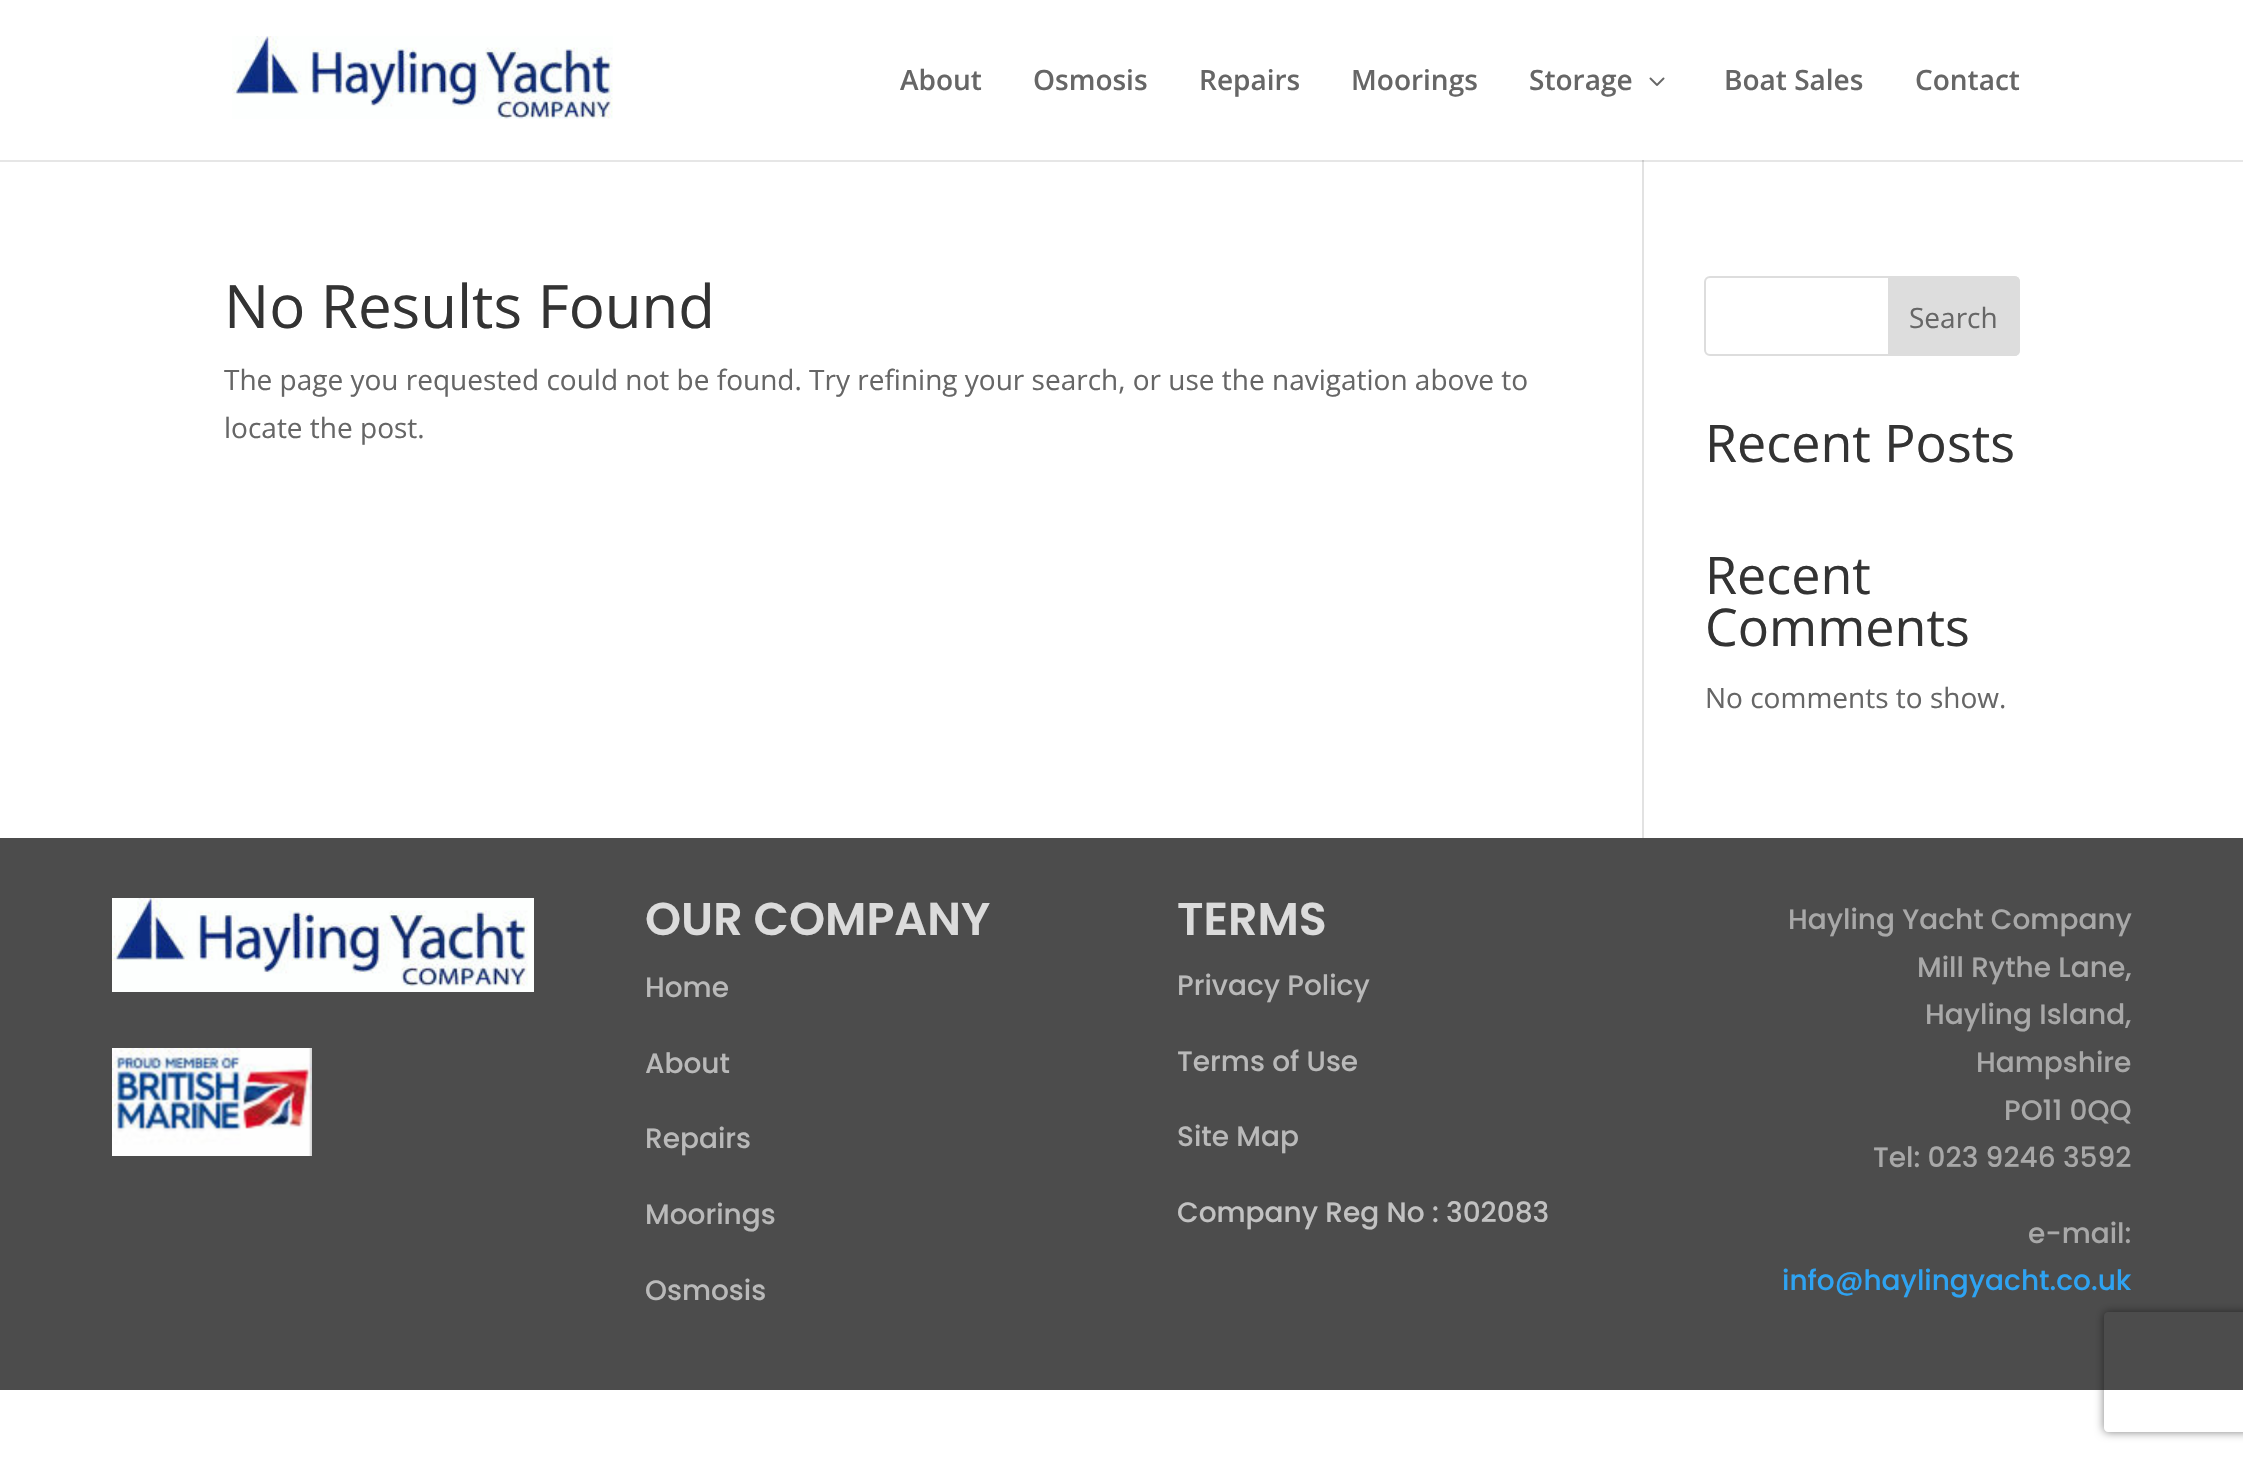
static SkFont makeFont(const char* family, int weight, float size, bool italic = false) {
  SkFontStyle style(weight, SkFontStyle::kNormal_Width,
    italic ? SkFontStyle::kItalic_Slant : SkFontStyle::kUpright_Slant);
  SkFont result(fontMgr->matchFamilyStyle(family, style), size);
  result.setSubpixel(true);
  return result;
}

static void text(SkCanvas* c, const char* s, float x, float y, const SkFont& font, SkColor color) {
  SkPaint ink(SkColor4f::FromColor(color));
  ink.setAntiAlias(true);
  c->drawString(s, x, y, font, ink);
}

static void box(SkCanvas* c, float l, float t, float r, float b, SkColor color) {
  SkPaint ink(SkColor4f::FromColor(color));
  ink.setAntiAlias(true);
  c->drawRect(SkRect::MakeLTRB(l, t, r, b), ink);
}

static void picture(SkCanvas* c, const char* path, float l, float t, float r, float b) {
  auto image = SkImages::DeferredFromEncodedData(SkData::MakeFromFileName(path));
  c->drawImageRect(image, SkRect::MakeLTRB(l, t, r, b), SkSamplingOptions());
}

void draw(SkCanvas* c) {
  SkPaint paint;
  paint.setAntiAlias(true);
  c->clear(0xffffffff);
  box(c, 0, 160, 2243, 162, 0xffe6e6e6);
  picture(c, "img_01.png", 232, 36, 613, 119);
  SkFont face1 = makeFont("Open Sans", 600, 28);
  text(c, "About", 900, 90, face1, 0xff666666);
  text(c, "Osmosis", 1033, 90, face1, 0xff666666);
  text(c, "Repairs", 1199, 90, face1, 0xff666666);
  text(c, "Moorings", 1351, 90, face1, 0xff666666);
  text(c, "Storage", 1529, 90, face1, 0xff666666);
  picture(c, "img_02.png", 1649, 77, 1665, 86);
  text(c, "Boat Sales", 1724, 90, face1, 0xff666666);
  text(c, "Contact", 1915, 90, face1, 0xff666666);
  box(c, 1642, 160, 1644, 838, 0xffe2e2e2);
  box(c, 1642, 160, 1644, 162, 0xffcbcbcb);
  SkFont face2 = makeFont("Open Sans", 400, 60);
  text(c, "No Results Found", 224, 328, face2, 0xff333333);
  SkFont face3 = makeFont("Open Sans", 400, 28);
  text(c, "The page you requested could not be found. Try refining your search, or use the navigation above to", 224, 390, face3, 0xff666666);
  text(c, "locate the post.", 224, 438, face3, 0xff666666);
  paint.setStyle(SkPaint::kStroke_Style);
  paint.setStrokeWidth(2);
  paint.setColor(0xffdddddd);
  c->drawRoundRect(SkRect::MakeLTRB(1705, 277, 2019, 355), 5, 5, paint);
  paint.setStyle(SkPaint::kFill_Style);
  c->drawPath(SkPathBuilder().moveTo(1889, 277).lineTo(2014, 277).cubicTo(2017, 277, 2019, 279, 2019, 282).lineTo(2019, 350).cubicTo(2019, 353, 2017, 355, 2014, 355).lineTo(1889, 355).close().detach(), paint);
  paint.setStyle(SkPaint::kStroke_Style);
  c->drawPath(SkPathBuilder().moveTo(1889, 277).lineTo(2014, 277).cubicTo(2017, 277, 2019, 279, 2019, 282).lineTo(2019, 350).cubicTo(2019, 353, 2017, 355, 2014, 355).lineTo(1889, 355).close().detach(), paint);
  text(c, "Search", 1909, 328, face3, 0xff666666);
  SkFont face4 = makeFont("Open Sans", 400, 52);
  text(c, "Recent Posts", 1705, 462, face4, 0xff333333);
  text(c, "Recent", 1705, 594, face4, 0xff333333);
  text(c, "Comments", 1705, 646, face4, 0xff333333);
  text(c, "No comments to show.", 1705, 708, face3, 0xff666666);
  c->save();
  c->clipPath(SkPathBuilder(SkPathFillType::kEvenOdd).moveTo(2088, 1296).lineTo(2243, 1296).lineTo(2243, 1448).lineTo(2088, 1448).close().moveTo(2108, 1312).lineTo(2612, 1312).cubicTo(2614, 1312, 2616, 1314, 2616, 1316).lineTo(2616, 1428).cubicTo(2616, 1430, 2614, 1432, 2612, 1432).lineTo(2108, 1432).cubicTo(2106, 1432, 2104, 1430, 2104, 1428).lineTo(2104, 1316).cubicTo(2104, 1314, 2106, 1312, 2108, 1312).close().detach(), true);
  paint.setStyle(SkPaint::kFill_Style);
  paint.setColor(0xff808080);
  paint.setMaskFilter(SkMaskFilter::MakeBlur(kNormal_SkBlurStyle, 5));
  c->drawRoundRect(SkRect::MakeLTRB(2104, 1312, 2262, 1432), 4, 4, paint);
  paint.setMaskFilter(nullptr);
  c->restore();
  box(c, 0, 838, 2243, 1390, 0xb3000000);
  picture(c, "img_03.png", 112, 898, 534, 992);
  picture(c, "img_04.png", 112, 1048, 312, 1156);
  SkFont face5 = makeFont("Poppins", 600, 46);
  text(c, "OUR COMPANY", 645, 935, face5, 0xffdbdbdb);
  SkFont face6 = makeFont("Poppins", 500, 28);
  text(c, "Home", 645, 997, face6, 0xffb9b9b9);
  text(c, "About", 645, 1073, face6, 0xffb9b9b9);
  text(c, "Repairs", 645, 1148, face6, 0xffb9b9b9);
  text(c, "Moorings", 645, 1224, face6, 0xffb9b9b9);
  text(c, "Osmosis", 645, 1300, face6, 0xffb9b9b9);
  text(c, "TERMS", 1177, 935, face5, 0xffdbdbdb);
  text(c, "Privacy Policy", 1177, 995, face6, 0xffb9b9b9);
  text(c, "Terms of Use", 1177, 1071, face6, 0xffb9b9b9);
  text(c, "Site Map", 1177, 1146, face6, 0xffb9b9b9);
  text(c, "Company Reg No : 302083", 1177, 1222, face6, 0xffc2c2c2);
  text(c, "Hayling Yacht Company", 1788, 929, face6, 0xffa8a8a8);
  text(c, "Mill Rythe Lane,", 1917, 977, face6, 0xffa8a8a8);
  text(c, "Hayling Island,", 1925, 1024, face6, 0xffa8a8a8);
  text(c, "Hampshire", 1976, 1072, face6, 0xffa8a8a8);
  text(c, "PO11 0QQ", 2004, 1120, face6, 0xffa8a8a8);
  text(c, "Tel: 023 9246 3592", 1873, 1167, face6, 0xffa8a8a8);
  text(c, "e-mail:", 2028, 1243, face6, 0xffa8a8a8);
  text(c, "info@haylingyacht.co.uk", 1782, 1290, face6, 0xff2ea3f2);
}
